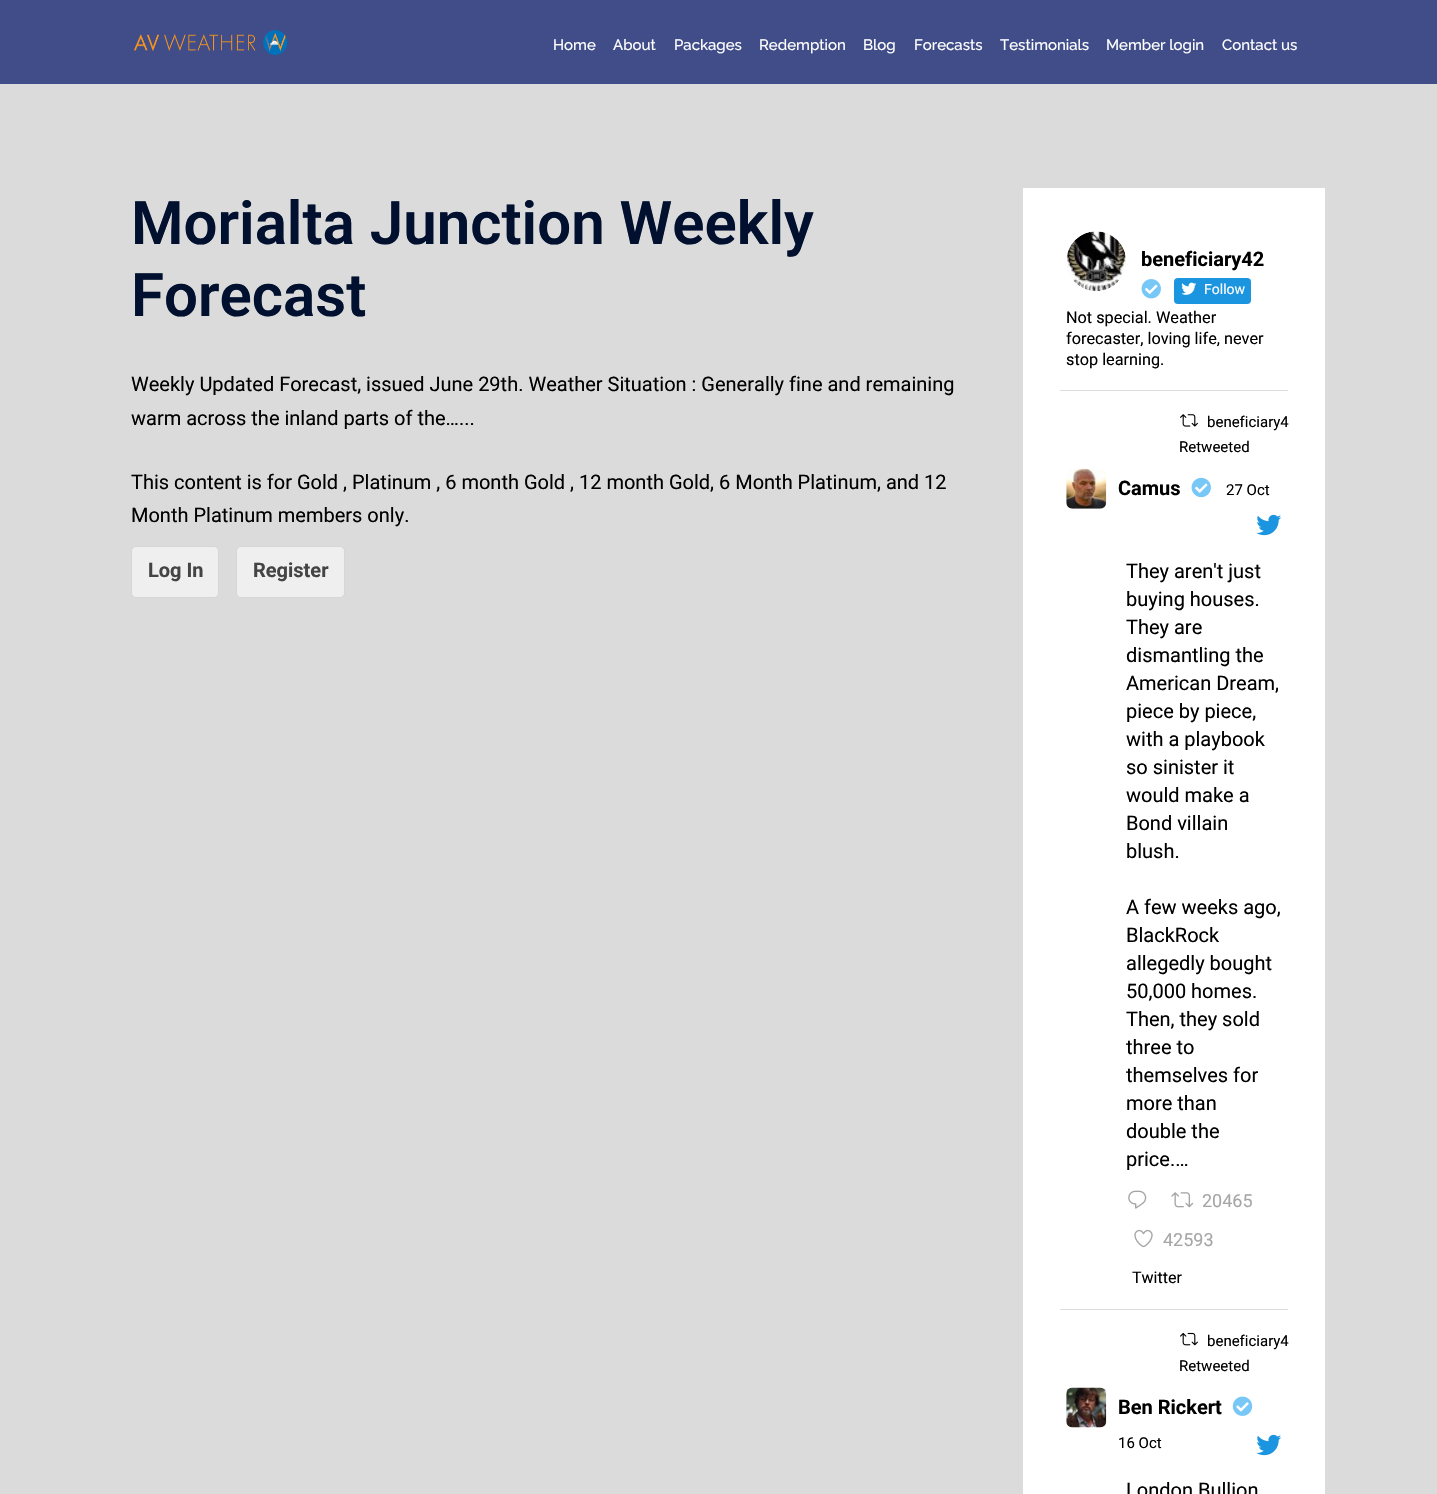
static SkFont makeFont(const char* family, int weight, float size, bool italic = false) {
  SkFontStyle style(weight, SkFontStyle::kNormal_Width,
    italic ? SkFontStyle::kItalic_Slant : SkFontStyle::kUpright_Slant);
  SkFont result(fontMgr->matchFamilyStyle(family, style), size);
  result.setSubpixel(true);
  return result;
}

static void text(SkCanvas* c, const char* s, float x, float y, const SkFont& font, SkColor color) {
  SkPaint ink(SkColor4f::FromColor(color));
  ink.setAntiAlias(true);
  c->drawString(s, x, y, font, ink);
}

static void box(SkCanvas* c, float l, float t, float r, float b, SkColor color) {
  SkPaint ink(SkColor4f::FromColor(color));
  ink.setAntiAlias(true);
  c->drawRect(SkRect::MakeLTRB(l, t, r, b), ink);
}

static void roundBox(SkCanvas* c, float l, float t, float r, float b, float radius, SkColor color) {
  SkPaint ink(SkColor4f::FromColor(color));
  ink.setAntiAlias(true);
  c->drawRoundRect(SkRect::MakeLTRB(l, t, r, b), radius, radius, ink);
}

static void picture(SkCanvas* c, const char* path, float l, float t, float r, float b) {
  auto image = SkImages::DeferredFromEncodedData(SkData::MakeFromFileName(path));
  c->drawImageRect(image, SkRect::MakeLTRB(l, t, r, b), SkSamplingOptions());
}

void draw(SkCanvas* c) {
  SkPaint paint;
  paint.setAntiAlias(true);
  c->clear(0xffdbdbdb);
  box(c, 0, 0, 1437, 84, 0xff404d89);
  picture(c, "img_01.png", 134, 30, 288, 55);
  SkFont face1 = makeFont("Raleway", 500, 15);
  text(c, "Home", 553, 50, face1, 0xffffffff);
  text(c, "About", 613, 50, face1, 0xffffffff);
  text(c, "Packages", 674, 50, face1, 0xffffffff);
  text(c, "Redemption", 759, 50, face1, 0xffffffff);
  text(c, "Blog", 863, 50, face1, 0xffffffff);
  text(c, "Forecasts", 914, 50, face1, 0xffffffff);
  text(c, "Testimonials", 1000, 50, face1, 0xffffffff);
  text(c, "Member login", 1106, 50, face1, 0xffffffff);
  text(c, "Contact us", 1222, 50, face1, 0xffffffff);
  SkFont face2 = makeFont("Roboto", 600, 60);
  text(c, "Morialta Junction Weekly", 131, 244, face2, 0xff00102e);
  text(c, "Forecast", 131, 316, face2, 0xff00102e);
  SkFont face3 = makeFont("Roboto", 400, 20);
  text(c, "Weekly Updated Forecast, issued June 29th. Weather Situation : Generally fine and remaining", 131, 391, face3, 0xff000000);
  text(c, "warm across the inland parts of the…...", 131, 425, face3, 0xff000000);
  text(c, "This content is for Gold , Platinum , 6 month Gold , 12 month Gold, 6 Month Platinum, and 12", 131, 489, face3, 0xff000000);
  text(c, "Month Platinum members only.", 131, 522, face3, 0xff000000);
  paint.setColor(0xffefefef);
  c->drawRoundRect(SkRect::MakeLTRB(131.5f, 546.5f, 218.5f, 597.5f), 4.5f, 4.5f, paint);
  paint.setStyle(SkPaint::kStroke_Style);
  paint.setStrokeWidth(1);
  paint.setColor(0xffd6d6d6);
  c->drawRoundRect(SkRect::MakeLTRB(131.5f, 546.5f, 218.5f, 597.5f), 4.5f, 4.5f, paint);
  SkFont face4 = makeFont("Roboto", 700, 20);
  text(c, "Log In", 148, 577, face4, 0xff444444);
  paint.setStyle(SkPaint::kFill_Style);
  paint.setColor(0xffefefef);
  c->drawRoundRect(SkRect::MakeLTRB(236.5f, 546.5f, 344.5f, 597.5f), 4.5f, 4.5f, paint);
  paint.setStyle(SkPaint::kStroke_Style);
  paint.setColor(0xffd6d6d6);
  c->drawRoundRect(SkRect::MakeLTRB(236.5f, 546.5f, 344.5f, 597.5f), 4.5f, 4.5f, paint);
  text(c, "Register", 253, 577, face4, 0xff444444);
  box(c, 1023, 188, 1325, 1494, 0xffffffff);
  box(c, 1060, 390, 1288, 391, 0xffdddddd);
  picture(c, "img_02.png", 1066, 231, 1126, 291);
  text(c, "beneficiary42", 1141, 266, face4, 0xff000000);
  picture(c, "img_03.png", 1141, 279, 1161, 299);
  roundBox(c, 1174, 278, 1251, 304, 4, 0xff1b95e0);
  picture(c, "img_04.png", 1181, 282, 1197, 295);
  SkFont face5 = makeFont("Roboto", 400, 14);
  text(c, "Follow", 1204, 294, face5, 0xffffffff);
  SkFont face6 = makeFont("Roboto", 400, 16.25f);
  text(c, "Not special. Weather", 1066, 323, face6, 0xff000000);
  text(c, "forecaster, loving life, never", 1066, 344, face6, 0xff000000);
  text(c, "stop learning.", 1066, 365, face6, 0xff000000);
  box(c, 1060, 1309, 1288, 1310, 0xffdddddd);
  picture(c, "img_05.png", 1180, 414, 1198, 427);
  SkFont face7 = makeFont("Roboto", 400, 15);
  text(c, "beneficiary4", 1207, 427, face7, 0xff000000);
  text(c, "Retweeted", 1179, 452, face7, 0xff000000);
  picture(c, "img_06.png", 1066, 468, 1107, 509);
  text(c, "Camus", 1118, 495, face4, 0xff000000);
  picture(c, "img_07.png", 1191, 477, 1211, 498);
  text(c, "27 Oct", 1226, 495, face7, 0xff000000);
  picture(c, "img_08.png", 1256, 514, 1282, 536);
  text(c, "They aren't just", 1126, 578, face3, 0xff000000);
  text(c, "buying houses.", 1126, 606, face3, 0xff000000);
  text(c, "They are", 1126, 634, face3, 0xff000000);
  text(c, "dismantling the", 1126, 662, face3, 0xff000000);
  text(c, "American Dream,", 1126, 690, face3, 0xff000000);
  text(c, "piece by piece,", 1126, 718, face3, 0xff000000);
  text(c, "with a playbook", 1126, 746, face3, 0xff000000);
  text(c, "so sinister it", 1126, 774, face3, 0xff000000);
  text(c, "would make a", 1126, 802, face3, 0xff000000);
  text(c, "Bond villain", 1126, 830, face3, 0xff000000);
  text(c, "blush.", 1126, 858, face3, 0xff000000);
  text(c, "A few weeks ago,", 1126, 914, face3, 0xff000000);
  text(c, "BlackRock", 1126, 942, face3, 0xff000000);
  text(c, "allegedly bought", 1126, 970, face3, 0xff000000);
  text(c, "50,000 homes.", 1126, 998, face3, 0xff000000);
  text(c, "Then, they sold", 1126, 1026, face3, 0xff000000);
  text(c, "three to", 1126, 1054, face3, 0xff000000);
  text(c, "themselves for", 1126, 1082, face3, 0xff000000);
  text(c, "more than", 1126, 1110, face3, 0xff000000);
  text(c, "double the", 1126, 1138, face3, 0xff000000);
  text(c, "price.…", 1126, 1166, face3, 0xff000000);
  picture(c, "img_09.png", 1128, 1190, 1147, 1209);
  picture(c, "img_10.png", 1171, 1192, 1194, 1208);
  SkFont face8 = makeFont("Roboto", 400, 18);
  text(c, "20465", 1202, 1207, face8, 0xffa6a6a6);
  picture(c, "img_11.png", 1134, 1229, 1153, 1248);
  text(c, "42593", 1163, 1246, face8, 0xffa6a6a6);
  SkFont face9 = makeFont("Roboto", 400, 16);
  text(c, "Twitter", 1132, 1283, face9, 0xff000000);
  picture(c, "img_12.png", 1180, 1332, 1198, 1346);
  text(c, "beneficiary4", 1207, 1346, face7, 0xff000000);
  text(c, "Retweeted", 1179, 1371, face7, 0xff000000);
  picture(c, "img_13.png", 1066, 1387, 1107, 1428);
  text(c, "Ben Rickert", 1118, 1414, face4, 0xff000000);
  picture(c, "img_14.png", 1232, 1396, 1253, 1416);
  text(c, "16 Oct", 1118, 1448, face7, 0xff000000);
  picture(c, "img_08.png", 1256, 1434, 1282, 1456);
  text(c, "London Bullion", 1126, 1497, face3, 0xff000000);
}
